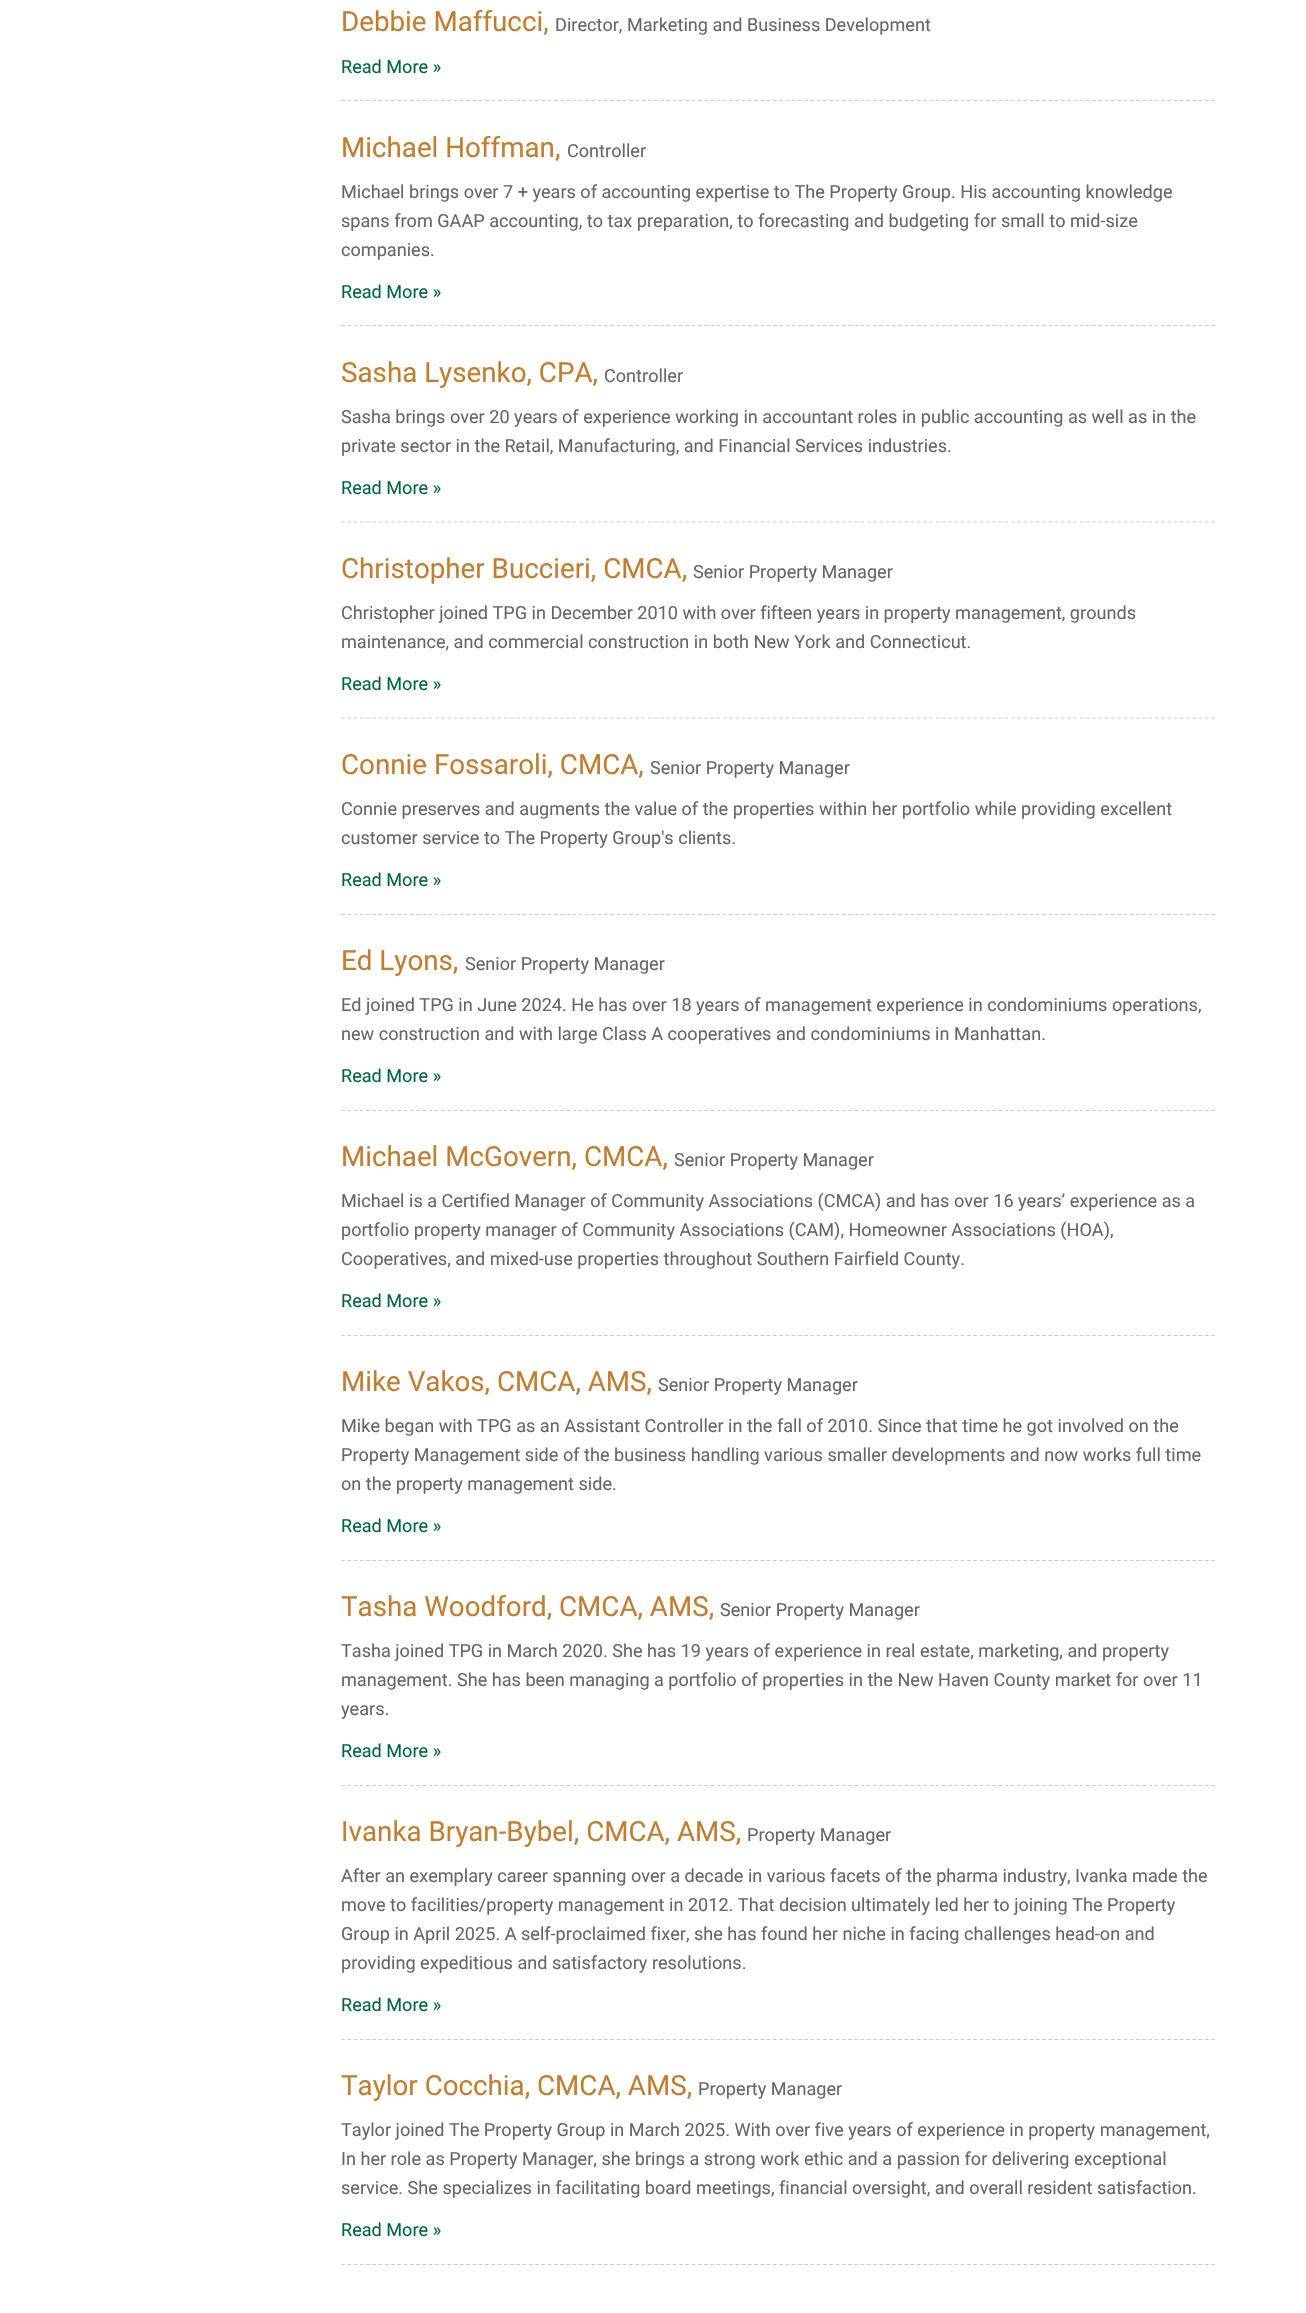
static SkFont makeFont(const char* family, int weight, float size, bool italic = false) {
  SkFontStyle style(weight, SkFontStyle::kNormal_Width,
    italic ? SkFontStyle::kItalic_Slant : SkFontStyle::kUpright_Slant);
  SkFont result(fontMgr->matchFamilyStyle(family, style), size);
  result.setSubpixel(true);
  return result;
}

static void text(SkCanvas* c, const char* s, float x, float y, const SkFont& font, SkColor color) {
  SkPaint ink(SkColor4f::FromColor(color));
  ink.setAntiAlias(true);
  c->drawString(s, x, y, font, ink);
}

void draw(SkCanvas* c) {
  SkPaint paint;
  paint.setAntiAlias(true);
  c->clear(0xffffffff);
  SkFont face1 = makeFont("Roboto", 400, 27.75f);
  text(c, "Debbie Maffucci,", 341, 31, face1, 0xffc17e30);
  SkFont face2 = makeFont("Roboto", 400, 18.1f);
  text(c, "Director, Marketing and Business Development", 555, 31, face2, 0xff666666);
  text(c, "Read More »", 341, 73, face2, 0xff006544);
  paint.setStyle(SkPaint::kStroke_Style);
  paint.setStrokeWidth(1.2f);
  paint.setColor(0xffcccccc);
  paint.setPathEffect(SkDashPathEffect::Make({{3.75f, 2.51f}}, 0));
  c->drawPath(SkPathBuilder().moveTo(341, 100.5f).lineTo(1216, 100.5f).detach(), paint);
  paint.setPathEffect(nullptr);
  text(c, "Michael Hoffman,", 341, 157, face1, 0xffc17e30);
  text(c, "Controller", 567, 157, face2, 0xff666666);
  text(c, "Michael brings over 7 + years of accounting expertise to The Property Group. His accounting knowledge", 341, 198, face2, 0xff666666);
  text(c, "spans from GAAP accounting, to tax preparation, to forecasting and budgeting for small to mid-size", 341, 227, face2, 0xff666666);
  text(c, "companies.", 341, 256, face2, 0xff666666);
  text(c, "Read More »", 341, 298, face2, 0xff006544);
  paint.setPathEffect(SkDashPathEffect::Make({{3.75f, 2.51f}}, 0));
  c->drawPath(SkPathBuilder().moveTo(341, 325.5f).lineTo(1216, 325.5f).detach(), paint);
  paint.setPathEffect(nullptr);
  text(c, "Sasha Lysenko, CPA,", 341, 382, face1, 0xffc17e30);
  text(c, "Controller", 604, 382, face2, 0xff666666);
  text(c, "Sasha brings over 20 years of experience working in accountant roles in public accounting as well as in the", 341, 423, face2, 0xff666666);
  text(c, "private sector in the Retail, Manufacturing, and Financial Services industries.", 341, 452, face2, 0xff666666);
  text(c, "Read More »", 341, 494, face2, 0xff006544);
  paint.setPathEffect(SkDashPathEffect::Make({{3.75f, 2.51f}}, 0));
  c->drawPath(SkPathBuilder().moveTo(341, 522).lineTo(1216, 522).detach(), paint);
  paint.setPathEffect(nullptr);
  text(c, "Christopher Buccieri, CMCA,", 341, 578, face1, 0xffc17e30);
  text(c, "Senior Property Manager", 693, 578, face2, 0xff666666);
  text(c, "Christopher joined TPG in December 2010 with over fifteen years in property management, grounds", 341, 619, face2, 0xff666666);
  text(c, "maintenance, and commercial construction in both New York and Connecticut.", 341, 648, face2, 0xff666666);
  text(c, "Read More »", 341, 690, face2, 0xff006544);
  paint.setPathEffect(SkDashPathEffect::Make({{3.75f, 2.51f}}, 0));
  c->drawPath(SkPathBuilder().moveTo(341, 718).lineTo(1216, 718).detach(), paint);
  paint.setPathEffect(nullptr);
  text(c, "Connie Fossaroli, CMCA,", 341, 774, face1, 0xffc17e30);
  text(c, "Senior Property Manager", 650, 774, face2, 0xff666666);
  text(c, "Connie preserves and augments the value of the properties within her portfolio while providing excellent", 341, 815, face2, 0xff666666);
  text(c, "customer service to The Property Group's clients.", 341, 844, face2, 0xff666666);
  text(c, "Read More »", 341, 886, face2, 0xff006544);
  paint.setPathEffect(SkDashPathEffect::Make({{3.75f, 2.51f}}, 0));
  c->drawPath(SkPathBuilder().moveTo(341, 914.5f).lineTo(1216, 914.5f).detach(), paint);
  paint.setPathEffect(nullptr);
  text(c, "Ed Lyons,", 341, 970, face1, 0xffc17e30);
  text(c, "Senior Property Manager", 465, 970, face2, 0xff666666);
  text(c, "Ed joined TPG in June 2024. He has over 18 years of management experience in condominiums operations,", 341, 1011, face2, 0xff666666);
  text(c, "new construction and with large Class A cooperatives and condominiums in Manhattan.", 341, 1040, face2, 0xff666666);
  text(c, "Read More »", 341, 1082, face2, 0xff006544);
  paint.setPathEffect(SkDashPathEffect::Make({{3.75f, 2.51f}}, 0));
  c->drawPath(SkPathBuilder().moveTo(341, 1110.5f).lineTo(1216, 1110.5f).detach(), paint);
  paint.setPathEffect(nullptr);
  text(c, "Michael McGovern, CMCA,", 341, 1166, face1, 0xffc17e30);
  text(c, "Senior Property Manager", 674, 1166, face2, 0xff666666);
  text(c, "Michael is a Certified Manager of Community Associations (CMCA) and has over 16 years’ experience as a", 341, 1207, face2, 0xff666666);
  text(c, "portfolio property manager of Community Associations (CAM), Homeowner Associations (HOA),", 341, 1236, face2, 0xff666666);
  text(c, "Cooperatives, and mixed-use properties throughout Southern Fairfield County.", 341, 1265, face2, 0xff666666);
  text(c, "Read More »", 341, 1307, face2, 0xff006544);
  paint.setPathEffect(SkDashPathEffect::Make({{3.75f, 2.51f}}, 0));
  c->drawPath(SkPathBuilder().moveTo(341, 1335.5f).lineTo(1216, 1335.5f).detach(), paint);
  paint.setPathEffect(nullptr);
  text(c, "Mike Vakos, CMCA, AMS,", 341, 1391, face1, 0xffc17e30);
  text(c, "Senior Property Manager", 658, 1391, face2, 0xff666666);
  text(c, "Mike began with TPG as an Assistant Controller in the fall of 2010. Since that time he got involved on the", 341, 1432, face2, 0xff666666);
  text(c, "Property Management side of the business handling various smaller developments and now works full time", 341, 1461, face2, 0xff666666);
  text(c, "on the property management side.", 341, 1490, face2, 0xff666666);
  text(c, "Read More »", 341, 1532, face2, 0xff006544);
  paint.setPathEffect(SkDashPathEffect::Make({{3.75f, 2.51f}}, 0));
  c->drawPath(SkPathBuilder().moveTo(341, 1560.5f).lineTo(1216, 1560.5f).detach(), paint);
  paint.setPathEffect(nullptr);
  text(c, "Tasha Woodford, CMCA, AMS,", 341, 1616, face1, 0xffc17e30);
  text(c, "Senior Property Manager", 720, 1616, face2, 0xff666666);
  text(c, "Tasha joined TPG in March 2020. She has 19 years of experience in real estate, marketing, and property", 341, 1657, face2, 0xff666666);
  text(c, "management. She has been managing a portfolio of properties in the New Haven County market for over 11", 341, 1686, face2, 0xff666666);
  text(c, "years.", 341, 1715, face2, 0xff666666);
  text(c, "Read More »", 341, 1757, face2, 0xff006544);
  paint.setPathEffect(SkDashPathEffect::Make({{3.75f, 2.51f}}, 0));
  c->drawPath(SkPathBuilder().moveTo(341, 1785.5f).lineTo(1216, 1785.5f).detach(), paint);
  paint.setPathEffect(nullptr);
  text(c, "Ivanka Bryan-Bybel, CMCA, AMS,", 341, 1841, face1, 0xffc17e30);
  text(c, "Property Manager", 747, 1841, face2, 0xff666666);
  text(c, "After an exemplary career spanning over a decade in various facets of the pharma industry, Ivanka made the", 341, 1882, face2, 0xff666666);
  text(c, "move to facilities/property management in 2012. That decision ultimately led her to joining The Property", 341, 1911, face2, 0xff666666);
  text(c, "Group in April 2025. A self-proclaimed fixer, she has found her niche in facing challenges head-on and", 341, 1940, face2, 0xff666666);
  text(c, "providing expeditious and satisfactory resolutions.", 341, 1969, face2, 0xff666666);
  text(c, "Read More »", 341, 2011, face2, 0xff006544);
  paint.setPathEffect(SkDashPathEffect::Make({{3.75f, 2.51f}}, 0));
  c->drawPath(SkPathBuilder().moveTo(341, 2039.5f).lineTo(1216, 2039.5f).detach(), paint);
  paint.setPathEffect(nullptr);
  text(c, "Taylor Cocchia, CMCA, AMS,", 341, 2095, face1, 0xffc17e30);
  text(c, "Property Manager", 698, 2095, face2, 0xff666666);
  text(c, "Taylor joined The Property Group in March 2025. With over five years of experience in property management,", 341, 2136, face2, 0xff666666);
  text(c, "In her role as Property Manager, she brings a strong work ethic and a passion for delivering exceptional", 341, 2165, face2, 0xff666666);
  text(c, "service. She specializes in facilitating board meetings, financial oversight, and overall resident satisfaction.", 341, 2194, face2, 0xff666666);
  text(c, "Read More »", 341, 2236, face2, 0xff006544);
  paint.setPathEffect(SkDashPathEffect::Make({{3.75f, 2.51f}}, 0));
  c->drawPath(SkPathBuilder().moveTo(341, 2264.5f).lineTo(1216, 2264.5f).detach(), paint);
  paint.setPathEffect(nullptr);
}
